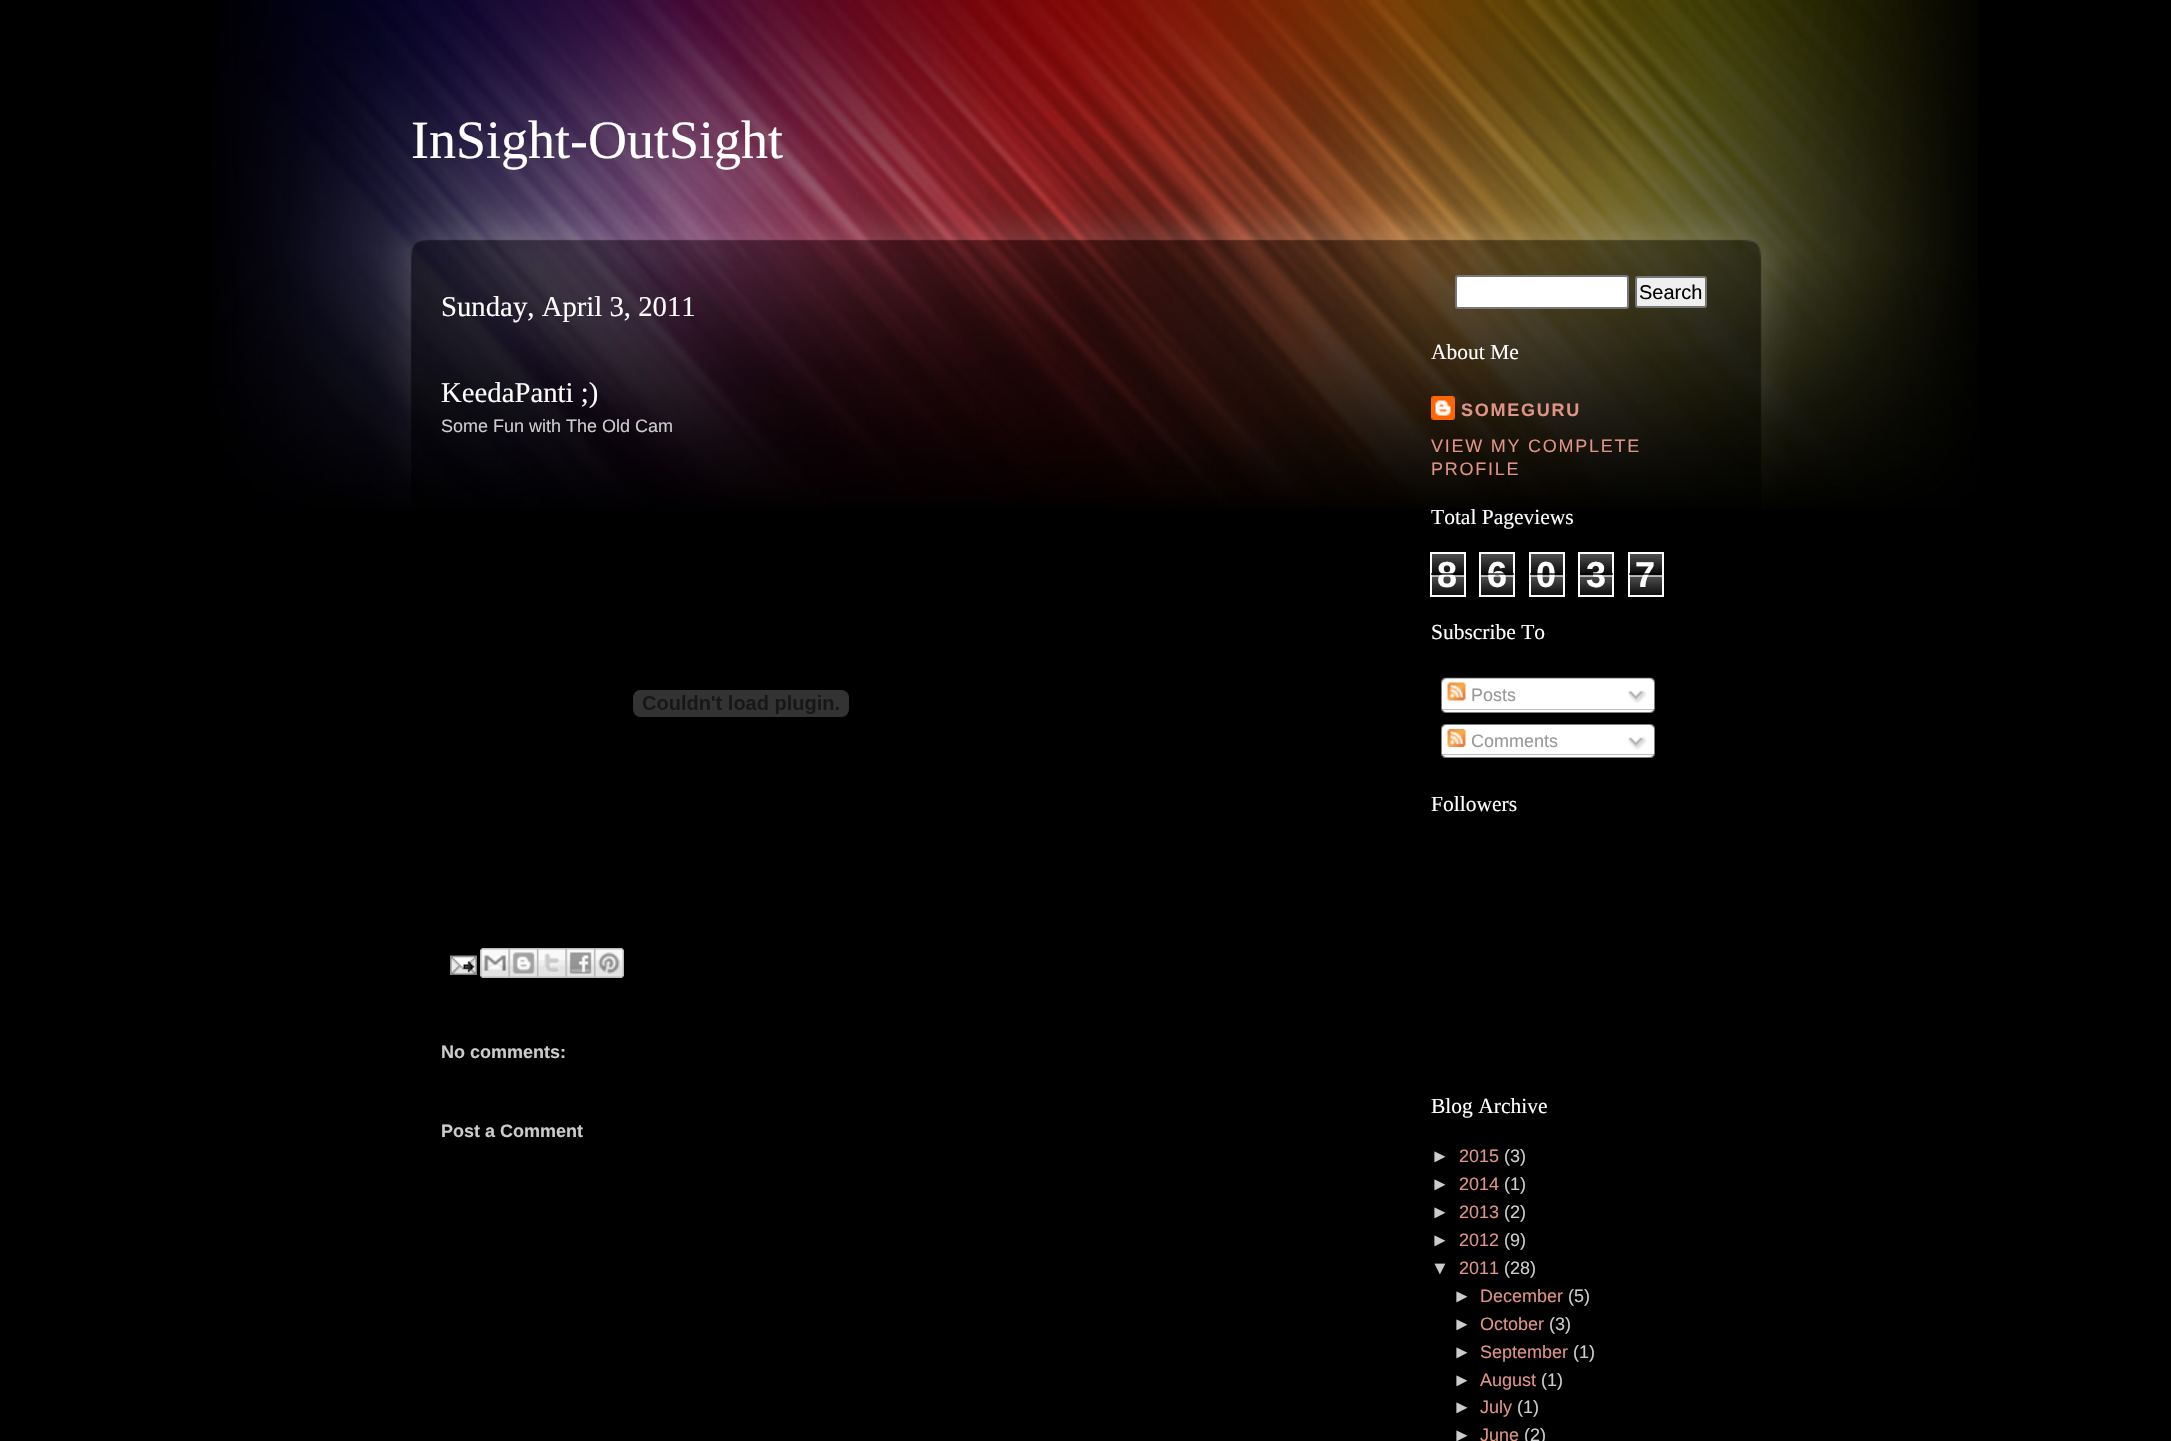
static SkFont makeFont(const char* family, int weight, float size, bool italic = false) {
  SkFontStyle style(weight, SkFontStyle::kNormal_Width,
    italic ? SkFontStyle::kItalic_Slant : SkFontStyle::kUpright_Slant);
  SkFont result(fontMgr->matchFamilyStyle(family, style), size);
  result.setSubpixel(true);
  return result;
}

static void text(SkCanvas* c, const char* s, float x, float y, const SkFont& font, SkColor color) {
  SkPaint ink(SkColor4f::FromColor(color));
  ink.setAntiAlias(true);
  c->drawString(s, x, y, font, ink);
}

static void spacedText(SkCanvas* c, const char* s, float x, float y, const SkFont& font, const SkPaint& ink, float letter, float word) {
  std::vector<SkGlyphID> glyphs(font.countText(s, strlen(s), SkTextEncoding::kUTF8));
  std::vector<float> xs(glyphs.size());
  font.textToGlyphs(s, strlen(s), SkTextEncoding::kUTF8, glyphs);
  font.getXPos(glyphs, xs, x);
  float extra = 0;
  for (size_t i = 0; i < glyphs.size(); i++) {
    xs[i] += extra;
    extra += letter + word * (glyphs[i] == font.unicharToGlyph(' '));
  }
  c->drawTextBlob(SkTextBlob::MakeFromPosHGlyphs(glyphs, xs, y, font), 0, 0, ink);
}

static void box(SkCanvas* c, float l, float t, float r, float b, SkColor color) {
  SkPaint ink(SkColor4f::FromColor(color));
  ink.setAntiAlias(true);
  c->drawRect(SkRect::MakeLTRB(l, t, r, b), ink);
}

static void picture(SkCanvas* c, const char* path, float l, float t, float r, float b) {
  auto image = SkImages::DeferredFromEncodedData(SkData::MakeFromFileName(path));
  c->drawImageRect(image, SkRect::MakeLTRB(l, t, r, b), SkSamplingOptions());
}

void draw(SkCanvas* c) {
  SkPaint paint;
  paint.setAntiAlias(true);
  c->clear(0xff000000);
  picture(c, "img_01.png", 211, 0, 1978, 509);
  SkFont face1 = makeFont("Liberation Serif", 400, 54);
  text(c, "InSight-OutSight", 411, 158, face1, 0xffffffff);
  SkFont face2 = makeFont("Liberation Serif", 400, 28.75f);
  text(c, "Sunday, April 3, 2011", 441, 316, face2, 0xffffffff);
  text(c, "KeedaPanti ;)", 441, 402, face2, 0xffffffff);
  SkFont face3 = makeFont("Liberation Sans", 400, 18);
  text(c, "Some Fun with The Old Cam", 441, 432, face3, 0xffcccccc);
  picture(c, "img_02.png", 633, 690, 849, 717);
  picture(c, "img_03.png", 450, 955, 477, 975);
  picture(c, "img_04.png", 480, 948, 509, 978);
  picture(c, "img_05.png", 508, 948, 537, 978);
  picture(c, "img_06.png", 537, 948, 566, 978);
  picture(c, "img_07.png", 565, 948, 594, 978);
  picture(c, "img_08.png", 594, 948, 624, 978);
  SkFont face4 = makeFont("Liberation Sans", 700, 18);
  text(c, "No comments:", 441, 1058, face4, 0xffcccccc);
  text(c, "Post a Comment", 441, 1137, face4, 0xffcccccc);
  paint.setColor(0xffffffff);
  c->drawRoundRect(SkRect::MakeLTRB(1456, 276, 1628, 308), 2, 2, paint);
  paint.setStyle(SkPaint::kStroke_Style);
  paint.setStrokeWidth(2);
  paint.setColor(0xff767676);
  c->drawRoundRect(SkRect::MakeLTRB(1456, 276, 1628, 308), 2, 2, paint);
  paint.setStyle(SkPaint::kFill_Style);
  paint.setColor(0xffefefef);
  c->drawRoundRect(SkRect::MakeLTRB(1636, 277, 1706, 307), 2, 2, paint);
  paint.setStyle(SkPaint::kStroke_Style);
  paint.setColor(0xff767676);
  c->drawRoundRect(SkRect::MakeLTRB(1636, 277, 1706, 307), 2, 2, paint);
  SkFont face5 = makeFont("Liberation Sans", 400, 20);
  text(c, "Search", 1639, 299, face5, 0xff000000);
  SkFont face6 = makeFont("Liberation Serif", 400, 21.5f);
  text(c, "About Me", 1431, 359, face6, 0xffffffff);
  picture(c, "img_09.png", 1431, 396, 1455, 420);
  paint.setStyle(SkPaint::kFill_Style);
  paint.setColor(0xffdf9486);
  spacedText(c, "SOMEGURU", 1461, 416, face4, paint, 1.75f, 0);
  spacedText(c, "VIEW MY COMPLETE", 1431, 452, face3, paint, 1.75f, 0);
  spacedText(c, "PROFILE", 1431, 475, face3, paint, 1.75f, 0);
  text(c, "Total Pageviews", 1431, 524, face6, 0xffffffff);
  picture(c, "img_10.png", 1432, 554, 1464, 595);
  paint.setStyle(SkPaint::kStroke_Style);
  paint.setColor(0xffffffff);
  c->drawRect(SkRect::MakeLTRB(1431, 553, 1465, 596), paint);
  SkFont face7 = makeFont("Liberation Sans", 700, 36);
  text(c, "8", 1437, 587, face7, 0xffffffff);
  box(c, 1431, 573, 1464, 575, 0xa6000000);
  box(c, 1431, 575, 1464, 577, 0xa6ffffff);
  picture(c, "img_11.png", 1481, 554, 1513, 595);
  c->drawRect(SkRect::MakeLTRB(1480, 553, 1514, 596), paint);
  text(c, "6", 1487, 587, face7, 0xffffffff);
  box(c, 1481, 573, 1514, 575, 0xa6000000);
  box(c, 1481, 575, 1514, 577, 0xa6ffffff);
  picture(c, "img_10.png", 1531, 554, 1563, 595);
  c->drawRect(SkRect::MakeLTRB(1530, 553, 1564, 596), paint);
  text(c, "0", 1536, 587, face7, 0xffffffff);
  box(c, 1530, 573, 1563, 575, 0xa6000000);
  box(c, 1530, 575, 1563, 577, 0xa6ffffff);
  picture(c, "img_11.png", 1580, 554, 1612, 595);
  c->drawRect(SkRect::MakeLTRB(1579, 553, 1613, 596), paint);
  text(c, "3", 1586, 587, face7, 0xffffffff);
  box(c, 1580, 573, 1613, 575, 0xa6000000);
  box(c, 1580, 575, 1613, 577, 0xa6ffffff);
  picture(c, "img_10.png", 1630, 554, 1662, 595);
  c->drawRect(SkRect::MakeLTRB(1629, 553, 1663, 596), paint);
  text(c, "7", 1635, 587, face7, 0xffffffff);
  box(c, 1629, 573, 1662, 575, 0xa6000000);
  box(c, 1629, 575, 1662, 577, 0xa6ffffff);
  text(c, "Subscribe To", 1431, 639, face6, 0xffffffff);
  picture(c, "img_12.png", 1441, 677, 1655, 710);
  picture(c, "img_13.png", 1447, 682, 1466, 701);
  text(c, "Posts", 1471, 701, face3, 0xff999999);
  picture(c, "img_14.png", 1627, 690, 1647, 704);
  picture(c, "img_15.png", 1441, 709, 1655, 713);
  picture(c, "img_16.png", 1441, 724, 1655, 755);
  picture(c, "img_17.png", 1447, 729, 1466, 747);
  text(c, "Comments", 1471, 747, face3, 0xff999999);
  picture(c, "img_18.png", 1627, 736, 1647, 750);
  picture(c, "img_15.png", 1441, 754, 1655, 758);
  text(c, "Followers", 1431, 811, face6, 0xffffffff);
  text(c, "Blog Archive", 1431, 1113, face6, 0xffffffff);
  text(c, "►", 1431, 1162, face3, 0xffcccccc);
  text(c, "2015", 1459, 1162, face3, 0xffdf9486);
  text(c, "(3)", 1504, 1162, face3, 0xffcccccc);
  text(c, "►", 1431, 1190, face3, 0xffcccccc);
  text(c, "2014", 1459, 1190, face3, 0xffdf9486);
  text(c, "(1)", 1504, 1190, face3, 0xffcccccc);
  text(c, "►", 1431, 1218, face3, 0xffcccccc);
  text(c, "2013", 1459, 1218, face3, 0xffdf9486);
  text(c, "(2)", 1504, 1218, face3, 0xffcccccc);
  text(c, "►", 1431, 1246, face3, 0xffcccccc);
  text(c, "2012", 1459, 1246, face3, 0xffdf9486);
  text(c, "(9)", 1504, 1246, face3, 0xffcccccc);
  text(c, "▼", 1431, 1274, face3, 0xffcccccc);
  text(c, "2011", 1459, 1274, face3, 0xffdf9486);
  text(c, "(28)", 1504, 1274, face3, 0xffcccccc);
  text(c, "►", 1453, 1302, face3, 0xffcccccc);
  text(c, "December", 1480, 1302, face3, 0xffdf9486);
  text(c, "(5)", 1568, 1302, face3, 0xffcccccc);
  text(c, "►", 1453, 1330, face3, 0xffcccccc);
  text(c, "October", 1480, 1330, face3, 0xffdf9486);
  text(c, "(3)", 1549, 1330, face3, 0xffcccccc);
  text(c, "►", 1453, 1358, face3, 0xffcccccc);
  text(c, "September", 1480, 1358, face3, 0xffdf9486);
  text(c, "(1)", 1573, 1358, face3, 0xffcccccc);
  text(c, "►", 1453, 1386, face3, 0xffcccccc);
  text(c, "August", 1480, 1386, face3, 0xffdf9486);
  text(c, "(1)", 1541, 1386, face3, 0xffcccccc);
  text(c, "►", 1453, 1413, face3, 0xffcccccc);
  text(c, "July", 1480, 1413, face3, 0xffdf9486);
  text(c, "(1)", 1517, 1413, face3, 0xffcccccc);
  text(c, "►", 1453, 1441, face3, 0xffcccccc);
  text(c, "June", 1480, 1441, face3, 0xffdf9486);
  text(c, "(2)", 1524, 1441, face3, 0xffcccccc);
}
